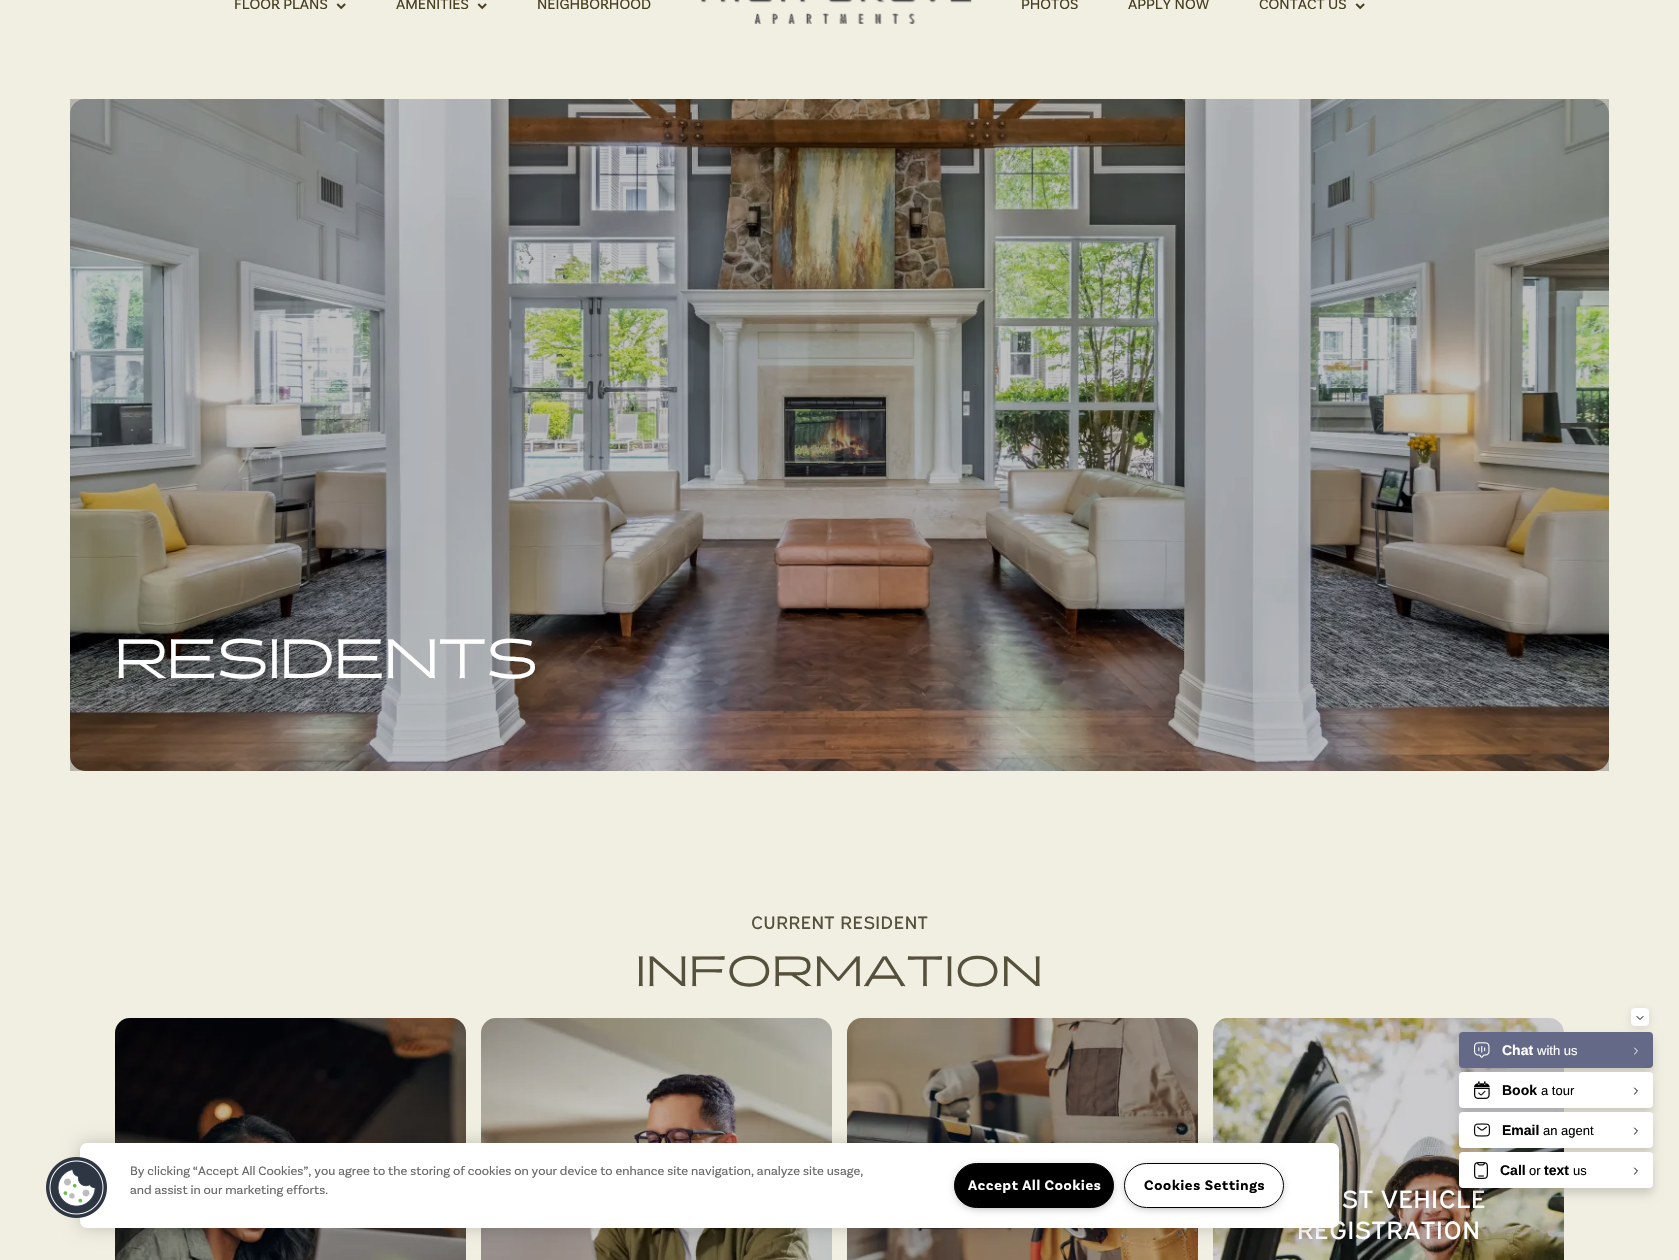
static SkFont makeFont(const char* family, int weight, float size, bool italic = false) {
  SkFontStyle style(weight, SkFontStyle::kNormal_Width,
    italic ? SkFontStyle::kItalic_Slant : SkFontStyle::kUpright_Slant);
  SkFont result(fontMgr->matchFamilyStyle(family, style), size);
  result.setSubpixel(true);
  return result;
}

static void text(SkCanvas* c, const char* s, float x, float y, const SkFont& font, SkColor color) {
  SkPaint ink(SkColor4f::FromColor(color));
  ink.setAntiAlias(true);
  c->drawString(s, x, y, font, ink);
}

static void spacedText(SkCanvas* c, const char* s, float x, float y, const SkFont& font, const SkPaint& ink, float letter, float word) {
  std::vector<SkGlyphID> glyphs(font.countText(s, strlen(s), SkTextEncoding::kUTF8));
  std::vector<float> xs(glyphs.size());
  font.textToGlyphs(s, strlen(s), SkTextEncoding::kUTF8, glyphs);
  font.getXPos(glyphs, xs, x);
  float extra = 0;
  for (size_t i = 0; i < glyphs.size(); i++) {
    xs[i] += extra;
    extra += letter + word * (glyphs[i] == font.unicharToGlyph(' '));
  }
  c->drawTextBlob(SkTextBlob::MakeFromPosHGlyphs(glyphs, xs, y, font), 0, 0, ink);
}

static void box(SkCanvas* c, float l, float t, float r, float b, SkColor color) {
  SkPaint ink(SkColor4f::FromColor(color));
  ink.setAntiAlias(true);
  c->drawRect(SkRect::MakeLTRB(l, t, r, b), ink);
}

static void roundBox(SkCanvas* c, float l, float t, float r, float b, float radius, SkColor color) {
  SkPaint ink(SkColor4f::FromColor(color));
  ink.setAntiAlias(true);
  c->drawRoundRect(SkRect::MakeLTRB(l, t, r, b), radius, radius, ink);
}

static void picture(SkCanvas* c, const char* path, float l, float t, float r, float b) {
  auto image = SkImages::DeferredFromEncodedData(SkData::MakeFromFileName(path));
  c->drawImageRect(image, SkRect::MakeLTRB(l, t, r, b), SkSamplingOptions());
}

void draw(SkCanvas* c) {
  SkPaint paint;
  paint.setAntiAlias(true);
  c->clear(0xfff1efe2);
  box(c, 70, 99, 1609, 771, 0xffb5b3aa);
  SkFont face1 = makeFont("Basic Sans", 400, 15);
  text(c, "FLOOR PLANS", 234, 9, face1, 0xff463f22);
  picture(c, "img_01.png", 336, 3, 346, 10);
  text(c, "AMENITIES", 396, 9, face1, 0xff463f22);
  picture(c, "img_01.png", 477, 3, 487, 10);
  text(c, "NEIGHBORHOOD", 537, 9, face1, 0xff463f22);
  picture(c, "img_02.png", 701, 0, 972, 24);
  text(c, "PHOTOS", 1021, 9, face1, 0xff463f22);
  text(c, "APPLY NOW", 1128, 9, face1, 0xff463f22);
  text(c, "CONTACT US", 1259, 9, face1, 0xff463f22);
  picture(c, "img_01.png", 1355, 3, 1365, 10);
  picture(c, "img_03.png", 70, 99, 1609, 771);
  SkFont face2 = makeFont("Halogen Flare", 400, 55);
  text(c, "RESIDENTS", 115, 678, face2, 0xffffffff);
  SkFont face3 = makeFont("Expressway", 400, 18);
  paint.setColor(0xff56513c);
  spacedText(c, "CURRENT RESIDENT", 751, 929, face3, paint, 0.5f, 0);
  SkFont face4 = makeFont("Halogen Flare", 400, 42.25f);
  spacedText(c, "INFORMATION", 636, 986, face4, paint, 1.25f, 0);
  picture(c, "img_04.png", 115, 1018, 466, 1260);
  roundBox(c, 115, 1018, 466, 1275, 15, 0x33000000);
  picture(c, "img_05.png", 481, 1018, 832, 1260);
  roundBox(c, 481, 1018, 832, 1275, 15, 0x33000000);
  picture(c, "img_06.png", 847, 1018, 1198, 1260);
  roundBox(c, 847, 1018, 1198, 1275, 15, 0x33000000);
  picture(c, "img_07.png", 1213, 1018, 1564, 1260);
  roundBox(c, 1213, 1018, 1564, 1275, 15, 0x33000000);
  SkFont face5 = makeFont("Expressway", 400, 25);
  paint.setColor(0xffffffff);
  spacedText(c, "ST VEHICLE", 1342, 1208, face5, paint, 0.75f, 0);
  spacedText(c, "REGISTRATION", 1297, 1239, face5, paint, 0.75f, 0);
  paint.setColor(0x26000000);
  paint.setMaskFilter(SkMaskFilter::MakeBlur(kNormal_SkBlurStyle, 5));
  c->drawRoundRect(SkRect::MakeLTRB(1459, 1038, 1653, 1074), 4, 4, paint);
  paint.setMaskFilter(nullptr);
  roundBox(c, 1459, 1032, 1653, 1068, 4, 0xff646987);
  paint.setColor(0x33636363);
  paint.setMaskFilter(SkMaskFilter::MakeBlur(kNormal_SkBlurStyle, 4));
  c->drawRoundRect(SkRect::MakeLTRB(1631, 1010, 1649, 1028), 4, 4, paint);
  paint.setMaskFilter(nullptr);
  roundBox(c, 1631, 1008, 1649, 1026, 4, 0xffffffff);
  paint.setStyle(SkPaint::kStroke_Style);
  paint.setStrokeWidth(1);
  paint.setStrokeCap(SkPaint::kRound_Cap);
  paint.setStrokeJoin(SkPaint::kRound_Join);
  paint.setColor(0xff000000);
  c->drawPath(SkPathBuilder().moveTo(1637, 1016.5f).lineTo(1640, 1019.5f).lineTo(1643, 1016.5f).detach(), paint);
  picture(c, "img_08.png", 1474, 1042, 1490, 1058);
  SkFont face6 = makeFont("Liberation Sans", 700, 14);
  text(c, "Chat", 1502, 1055, face6, 0xffffffff);
  SkFont face7 = makeFont("Liberation Sans", 400, 13);
  text(c, "with us", 1537, 1055, face7, 0xffffffff);
  paint.setColor(0xffffffff);
  c->drawPath(SkPathBuilder().moveTo(1634.5f, 1054).lineTo(1637.5f, 1051).lineTo(1634.5f, 1048).detach(), paint);
  paint.setStyle(SkPaint::kFill_Style);
  paint.setColor(0x26000000);
  paint.setMaskFilter(SkMaskFilter::MakeBlur(kNormal_SkBlurStyle, 5));
  c->drawRoundRect(SkRect::MakeLTRB(1459, 1078, 1653, 1114), 4, 4, paint);
  paint.setMaskFilter(nullptr);
  roundBox(c, 1459, 1072, 1653, 1108, 4, 0xffffffff);
  picture(c, "img_09.png", 1474, 1081, 1490, 1099);
  text(c, "Book", 1502, 1095, face6, 0xff000000);
  text(c, "a tour", 1541, 1095, face7, 0xff000000);
  paint.setStyle(SkPaint::kStroke_Style);
  paint.setColor(0xff000000);
  c->drawPath(SkPathBuilder().moveTo(1634.5f, 1094).lineTo(1637.5f, 1091).lineTo(1634.5f, 1088).detach(), paint);
  paint.setStyle(SkPaint::kFill_Style);
  paint.setColor(0x26000000);
  paint.setMaskFilter(SkMaskFilter::MakeBlur(kNormal_SkBlurStyle, 5));
  c->drawRoundRect(SkRect::MakeLTRB(1459, 1118, 1653, 1154), 4, 4, paint);
  paint.setMaskFilter(nullptr);
  roundBox(c, 1459, 1112, 1653, 1148, 4, 0xffffffff);
  picture(c, "img_10.png", 1474, 1123, 1490, 1137);
  text(c, "Email", 1502, 1135, face6, 0xff000000);
  text(c, "an agent", 1543, 1135, face7, 0xff000000);
  paint.setStyle(SkPaint::kStroke_Style);
  paint.setColor(0xff000000);
  c->drawPath(SkPathBuilder().moveTo(1634.5f, 1134).lineTo(1637.5f, 1131).lineTo(1634.5f, 1128).detach(), paint);
  paint.setStyle(SkPaint::kFill_Style);
  paint.setColor(0x26000000);
  paint.setMaskFilter(SkMaskFilter::MakeBlur(kNormal_SkBlurStyle, 5));
  c->drawRoundRect(SkRect::MakeLTRB(1459, 1158, 1653, 1194), 4, 4, paint);
  paint.setMaskFilter(nullptr);
  roundBox(c, 1459, 1152, 1653, 1188, 4, 0xffffffff);
  picture(c, "img_11.png", 1474, 1162, 1488, 1179);
  text(c, "Call", 1500, 1175, face6, 0xff000000);
  text(c, "or", 1529, 1175, face7, 0xff000000);
  text(c, "text", 1544, 1175, face6, 0xff000000);
  text(c, "us", 1573, 1175, face7, 0xff000000);
  paint.setStyle(SkPaint::kStroke_Style);
  paint.setColor(0xff000000);
  c->drawPath(SkPathBuilder().moveTo(1634.5f, 1174).lineTo(1637.5f, 1171).lineTo(1634.5f, 1168).detach(), paint);
  paint.setStyle(SkPaint::kFill_Style);
  paint.setColor(0x33000000);
  paint.setMaskFilter(SkMaskFilter::MakeBlur(kNormal_SkBlurStyle, 9));
  c->drawRoundRect(SkRect::MakeLTRB(80, 1143, 1339, 1228), 7, 7, paint);
  paint.setMaskFilter(nullptr);
  roundBox(c, 80, 1143, 1339, 1228, 7, 0xffffffff);
  picture(c, "img_12.png", 46, 1157, 107, 1218);
  SkFont face8 = makeFont("Basic Sans", 400, 12.8f);
  text(c, "By clicking “Accept All Cookies”, you agree to the storing of cookies on your device to enhance site navigation, analyze site usage,", 130, 1175, face8, 0xff696969);
  text(c, "and assist in our marketing efforts.", 130, 1194, face8, 0xff696969);
  paint.setColor(0xff999999);
  paint.setMaskFilter(SkMaskFilter::MakeBlur(kNormal_SkBlurStyle, 5));
  c->drawRoundRect(SkRect::MakeLTRB(957, 1168, 1111, 1207), 19.5f, 19.5f, paint);
  paint.setMaskFilter(nullptr);
  paint.setColor(0xff000000);
  c->drawRoundRect(SkRect::MakeLTRB(954.5f, 1163.5f, 1113.5f, 1207.5f), 22, 22, paint);
  paint.setStyle(SkPaint::kStroke_Style);
  paint.setStrokeCap(SkPaint::kButt_Cap);
  paint.setStrokeJoin(SkPaint::kMiter_Join);
  c->drawRoundRect(SkRect::MakeLTRB(954.5f, 1163.5f, 1113.5f, 1207.5f), 22, 22, paint);
  SkFont face9 = makeFont("Basic Sans", 700, 14.5f);
  paint.setStyle(SkPaint::kFill_Style);
  paint.setColor(0xffffffff);
  spacedText(c, "Accept All Cookies", 968, 1190, face9, paint, 0.75f, 0);
  paint.setColor(0xff999999);
  paint.setMaskFilter(SkMaskFilter::MakeBlur(kNormal_SkBlurStyle, 5));
  c->drawRoundRect(SkRect::MakeLTRB(1127, 1168, 1281, 1207), 19.5f, 19.5f, paint);
  paint.setMaskFilter(nullptr);
  paint.setColor(0xffffffff);
  c->drawRoundRect(SkRect::MakeLTRB(1124.5f, 1163.5f, 1283.5f, 1207.5f), 22, 22, paint);
  paint.setStyle(SkPaint::kStroke_Style);
  paint.setColor(0xff000000);
  c->drawRoundRect(SkRect::MakeLTRB(1124.5f, 1163.5f, 1283.5f, 1207.5f), 22, 22, paint);
  paint.setStyle(SkPaint::kFill_Style);
  spacedText(c, "Cookies Settings", 1144, 1190, face9, paint, 0.75f, 0);
}
